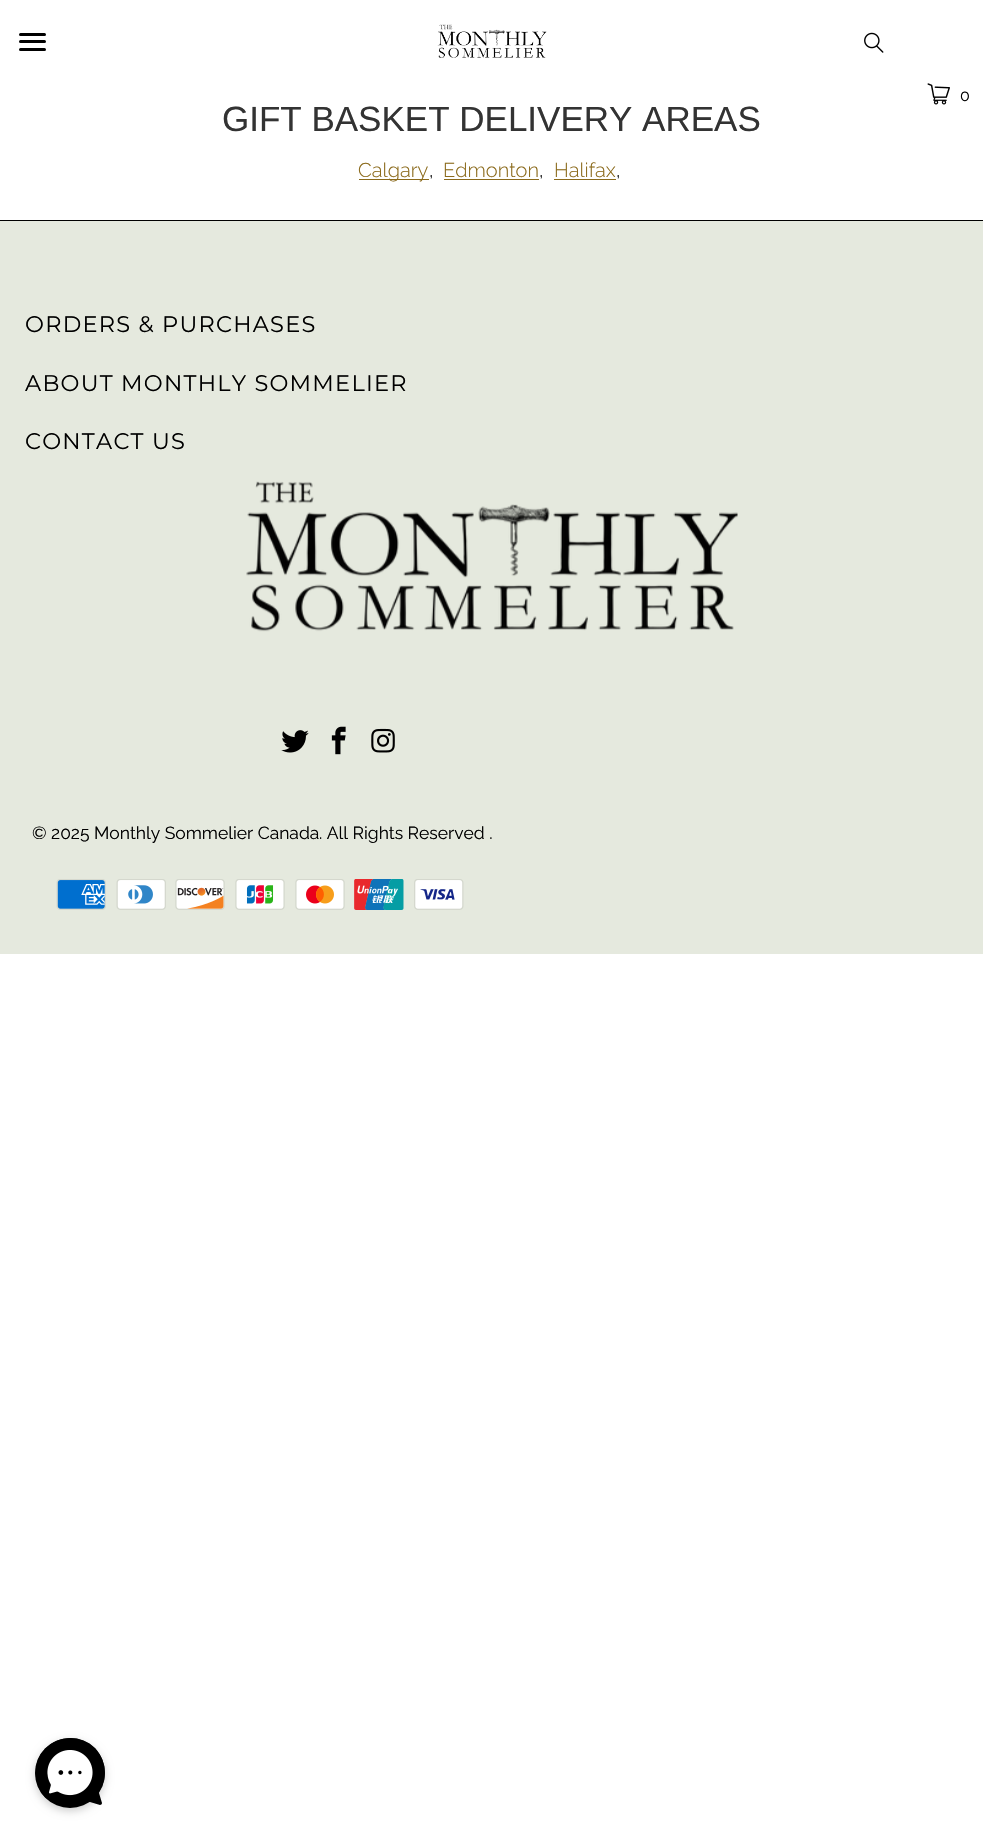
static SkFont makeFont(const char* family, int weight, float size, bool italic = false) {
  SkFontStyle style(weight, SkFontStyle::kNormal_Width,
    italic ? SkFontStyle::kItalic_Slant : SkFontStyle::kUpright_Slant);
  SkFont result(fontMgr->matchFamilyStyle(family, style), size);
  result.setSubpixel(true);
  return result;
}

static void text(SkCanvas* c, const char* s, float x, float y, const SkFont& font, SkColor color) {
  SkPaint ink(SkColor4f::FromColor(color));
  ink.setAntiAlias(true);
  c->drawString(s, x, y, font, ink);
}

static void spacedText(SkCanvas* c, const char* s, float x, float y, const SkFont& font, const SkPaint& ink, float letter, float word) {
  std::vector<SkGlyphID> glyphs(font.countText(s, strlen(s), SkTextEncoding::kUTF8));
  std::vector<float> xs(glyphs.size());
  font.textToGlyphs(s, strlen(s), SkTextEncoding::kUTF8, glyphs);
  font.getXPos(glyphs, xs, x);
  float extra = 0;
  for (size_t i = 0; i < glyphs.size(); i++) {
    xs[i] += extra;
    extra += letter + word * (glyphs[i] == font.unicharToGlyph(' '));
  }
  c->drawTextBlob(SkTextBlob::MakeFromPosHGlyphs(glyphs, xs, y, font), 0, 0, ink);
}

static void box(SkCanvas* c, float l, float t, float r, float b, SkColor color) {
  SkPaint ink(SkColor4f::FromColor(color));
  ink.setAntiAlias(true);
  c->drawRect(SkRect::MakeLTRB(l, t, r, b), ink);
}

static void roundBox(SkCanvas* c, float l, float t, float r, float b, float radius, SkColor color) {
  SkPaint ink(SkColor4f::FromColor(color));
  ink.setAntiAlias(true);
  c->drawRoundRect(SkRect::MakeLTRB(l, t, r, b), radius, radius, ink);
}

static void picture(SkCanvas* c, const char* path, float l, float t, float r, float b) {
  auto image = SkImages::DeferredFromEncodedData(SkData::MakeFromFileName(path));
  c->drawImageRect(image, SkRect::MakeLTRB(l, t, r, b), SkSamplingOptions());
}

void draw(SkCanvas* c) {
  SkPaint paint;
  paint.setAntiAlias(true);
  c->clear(0xffffffff);
  roundBox(c, 19, 33, 46, 36, 1.5f, 0xff000000);
  roundBox(c, 19, 40, 46, 43, 1.5f, 0xff000000);
  roundBox(c, 19, 48, 46, 51, 1.5f, 0xff000000);
  picture(c, "img_01.png", 437, 24, 547, 58);
  picture(c, "img_02.png", 864, 32, 884, 53);
  picture(c, "img_03.png", 927, 83, 950, 105);
  SkFont face1 = makeFont("Raleway", 400, 16);
  paint.setColor(0xff000000);
  spacedText(c, "0", 960, 101, face1, paint, 1.25f, 0);
  SkFont face2 = makeFont("Liberation Sans", 400, 35);
  text(c, "GIFT BASKET DELIVERY AREAS", 222, 131, face2, 0xff333333);
  box(c, 359, 179, 429, 180, 0xff8b6a1b);
  SkFont face3 = makeFont("Raleway", 300, 20);
  text(c, "Calgary", 358, 177, face3, 0xff8b6a1b);
  SkFont face4 = makeFont("Raleway", 400, 20);
  text(c, ",", 429, 177, face4, 0xff333333);
  text(c, "Edmonton", 443, 177, face3, 0xff8b6a1b);
  box(c, 444, 179, 539, 180, 0xff8b6a1b);
  text(c, ",", 539, 177, face4, 0xff333333);
  text(c, "Halifax", 554, 177, face3, 0xff8b6a1b);
  box(c, 554, 179, 616, 180, 0xff8b6a1b);
  text(c, ",", 616, 177, face4, 0xff333333);
  box(c, 0, 221, 983, 954, 0xffe5e9de);
  box(c, 0, 220, 983, 221, 0xff000000);
  SkFont face5 = makeFont("Montserrat", 400, 22.5f);
  spacedText(c, "ORDERS & PURCHASES", 25, 332, face5, paint, 1.25f, 0);
  spacedText(c, "ABOUT MONTHLY SOMMELIER", 25, 391, face5, paint, 1.25f, 0);
  spacedText(c, "CONTACT US", 25, 449, face5, paint, 1.25f, 0);
  picture(c, "img_04.png", 246, 481, 738, 632);
  picture(c, "img_05.png", 281, 730, 309, 753);
  picture(c, "img_06.png", 331, 726, 346, 755);
  picture(c, "img_07.png", 371, 728, 395, 753);
  SkFont face6 = makeFont("Raleway", 400, 17.5f);
  text(c, "© 2025 Monthly Sommelier Canada", 32, 839, face6, 0xff000000);
  text(c, ". All Rights Reserved .", 319, 839, face6, 0xff000000);
  picture(c, "img_08.png", 56, 879, 106, 910);
  picture(c, "img_09.png", 116, 879, 166, 910);
  picture(c, "img_10.png", 175, 879, 225, 910);
  picture(c, "img_11.png", 235, 879, 285, 910);
  picture(c, "img_12.png", 295, 879, 345, 910);
  picture(c, "img_13.png", 354, 879, 404, 910);
  picture(c, "img_14.png", 414, 879, 464, 910);
  paint.setColor(0x33000000);
  paint.setMaskFilter(SkMaskFilter::MakeBlur(kNormal_SkBlurStyle, 4));
  c->drawRoundRect(SkRect::MakeLTRB(35, 1741, 105, 1811), 35, 35, paint);
  paint.setMaskFilter(nullptr);
  paint.setColor(0xff000000);
  c->drawCircle(70, 1773, 35, paint);
  c->drawPath(SkPathBuilder().moveTo(95, 1748).cubicTo(81, 1734, 58, 1735, 45, 1749).cubicTo(32, 1762, 33, 1784, 45, 1797).cubicTo(57, 1808, 74, 1810, 88, 1802).cubicTo(88, 1802, 89, 1802, 90, 1802).lineTo(100, 1805).cubicTo(101, 1805, 102, 1804, 102, 1803).lineTo(99, 1793).cubicTo(99, 1792, 99, 1791, 100, 1790).cubicTo(108, 1777, 106, 1760, 95, 1748).close().detach(), paint);
  picture(c, "img_15.png", 47, 1750, 93, 1796);
  picture(c, "img_16.png", 58, 1770, 82, 1775);
}
